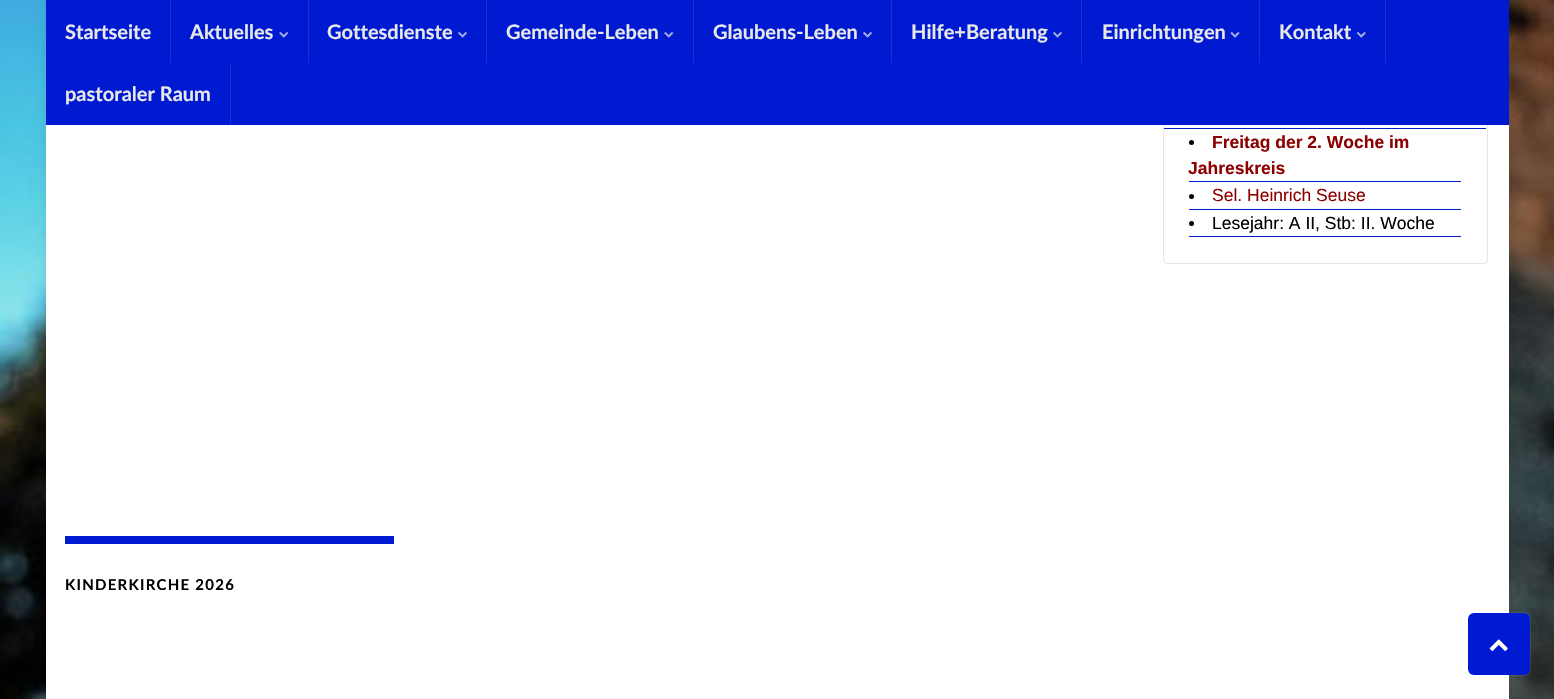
static SkFont makeFont(const char* family, int weight, float size, bool italic = false) {
  SkFontStyle style(weight, SkFontStyle::kNormal_Width,
    italic ? SkFontStyle::kItalic_Slant : SkFontStyle::kUpright_Slant);
  SkFont result(fontMgr->matchFamilyStyle(family, style), size);
  result.setSubpixel(true);
  return result;
}

static void text(SkCanvas* c, const char* s, float x, float y, const SkFont& font, SkColor color) {
  SkPaint ink(SkColor4f::FromColor(color));
  ink.setAntiAlias(true);
  c->drawString(s, x, y, font, ink);
}

static void spacedText(SkCanvas* c, const char* s, float x, float y, const SkFont& font, const SkPaint& ink, float letter, float word) {
  std::vector<SkGlyphID> glyphs(font.countText(s, strlen(s), SkTextEncoding::kUTF8));
  std::vector<float> xs(glyphs.size());
  font.textToGlyphs(s, strlen(s), SkTextEncoding::kUTF8, glyphs);
  font.getXPos(glyphs, xs, x);
  float extra = 0;
  for (size_t i = 0; i < glyphs.size(); i++) {
    xs[i] += extra;
    extra += letter + word * (glyphs[i] == font.unicharToGlyph(' '));
  }
  c->drawTextBlob(SkTextBlob::MakeFromPosHGlyphs(glyphs, xs, y, font), 0, 0, ink);
}

static void box(SkCanvas* c, float l, float t, float r, float b, SkColor color) {
  SkPaint ink(SkColor4f::FromColor(color));
  ink.setAntiAlias(true);
  c->drawRect(SkRect::MakeLTRB(l, t, r, b), ink);
}

static void roundBox(SkCanvas* c, float l, float t, float r, float b, float radius, SkColor color) {
  SkPaint ink(SkColor4f::FromColor(color));
  ink.setAntiAlias(true);
  c->drawRoundRect(SkRect::MakeLTRB(l, t, r, b), radius, radius, ink);
}

static void picture(SkCanvas* c, const char* path, float l, float t, float r, float b) {
  auto image = SkImages::DeferredFromEncodedData(SkData::MakeFromFileName(path));
  c->drawImageRect(image, SkRect::MakeLTRB(l, t, r, b), SkSamplingOptions());
}

void draw(SkCanvas* c) {
  SkPaint paint;
  paint.setAntiAlias(true);
  c->clear(0xffffffff);
  picture(c, "img_01.png", 0, 0, 1554, 699);
  paint.setColor(0x1a000000);
  paint.setMaskFilter(SkMaskFilter::MakeBlur(kNormal_SkBlurStyle, 6));
  c->drawRect(SkRect::MakeLTRB(46, -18, 1509, 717), paint);
  paint.setMaskFilter(nullptr);
  box(c, 46, 125, 1509, 699, 0xffffffff);
  paint.setStyle(SkPaint::kStroke_Style);
  paint.setStrokeWidth(1);
  paint.setColor(0xffe6e6e6);
  c->drawRoundRect(SkRect::MakeLTRB(1163.5f, 58.5f, 1487.5f, 263.5f), 3.5f, 3.5f, paint);
  box(c, 46, 0, 1509, 125, 0xff001ad1);
  box(c, 170, 0, 171, 63, 0xff1a31d6);
  SkFont face1 = makeFont("Lato", 700, 20);
  text(c, "Startseite", 65, 39, face1, 0xffe8e8e8);
  box(c, 308, 0, 309, 63, 0xff1a31d6);
  text(c, "Aktuelles", 190, 39, face1, 0xffe8e8e8);
  picture(c, "img_02.png", 279, 32, 289, 38);
  box(c, 486, 0, 487, 63, 0xff1a31d6);
  text(c, "Gottesdienste", 327, 39, face1, 0xffe8e8e8);
  picture(c, "img_03.png", 458, 32, 467, 38);
  box(c, 693, 0, 694, 63, 0xff1a31d6);
  text(c, "Gemeinde-Leben", 506, 39, face1, 0xffe8e8e8);
  picture(c, "img_02.png", 664, 32, 674, 38);
  box(c, 891, 0, 892, 63, 0xff1a31d6);
  text(c, "Glaubens-Leben", 713, 39, face1, 0xffe8e8e8);
  picture(c, "img_03.png", 863, 32, 872, 38);
  box(c, 1081, 0, 1082, 63, 0xff1a31d6);
  text(c, "Hilfe+Beratung", 911, 39, face1, 0xffe8e8e8);
  picture(c, "img_03.png", 1053, 32, 1062, 38);
  box(c, 1259, 0, 1260, 63, 0xff1a31d6);
  text(c, "Einrichtungen", 1102, 39, face1, 0xffe8e8e8);
  picture(c, "img_04.png", 1230, 32, 1240, 38);
  box(c, 1385, 0, 1386, 63, 0xff1a31d6);
  text(c, "Kontakt", 1279, 39, face1, 0xffe8e8e8);
  picture(c, "img_05.png", 1356, 32, 1366, 38);
  box(c, 230, 63, 231, 125, 0xff1a31d6);
  text(c, "pastoraler Raum", 65, 101, face1, 0xffe8e8e8);
  box(c, 1164, 128, 1486, 129, 0xff001ad1);
  box(c, 1189, 181, 1461, 182, 0xff001ad1);
  paint.setStyle(SkPaint::kFill_Style);
  paint.setColor(0xff000000);
  c->drawCircle(1191.5f, 142.5f, 2.5f, paint);
  SkFont face2 = makeFont("Liberation Sans", 700, 17.5f);
  text(c, "Freitag der 2. Woche im", 1212, 148, face2, 0xff8c0000);
  text(c, "Jahreskreis", 1188, 174, face2, 0xff8c0000);
  box(c, 1189, 209, 1461, 210, 0xff001ad1);
  c->drawCircle(1191.5f, 196.5f, 2.5f, paint);
  SkFont face3 = makeFont("Liberation Sans", 400, 17.5f);
  text(c, "Sel. Heinrich Seuse", 1212, 201, face3, 0xff8c0000);
  box(c, 1189, 236, 1461, 237, 0xff001ad1);
  c->drawCircle(1191.5f, 223.5f, 2.5f, paint);
  text(c, "Lesejahr: A II, Stb: II. Woche", 1212, 229, face3, 0xff000000);
  box(c, 65, 536, 394, 544, 0xff001ad1);
  SkFont face4 = makeFont("Lato", 700, 15);
  spacedText(c, "KINDERKIRCHE 2026", 65, 590, face4, paint, 1.25f, 0);
  paint.setColor(0x4dffffff);
  paint.setMaskFilter(SkMaskFilter::MakeBlur(kNormal_SkBlurStyle, 1));
  c->drawRoundRect(SkRect::MakeLTRB(1468, 613, 1530, 675), 6, 6, paint);
  paint.setMaskFilter(nullptr);
  roundBox(c, 1468, 613, 1530, 675, 6, 0xff001ad1);
  picture(c, "img_06.png", 1489, 639, 1508, 651);
}
